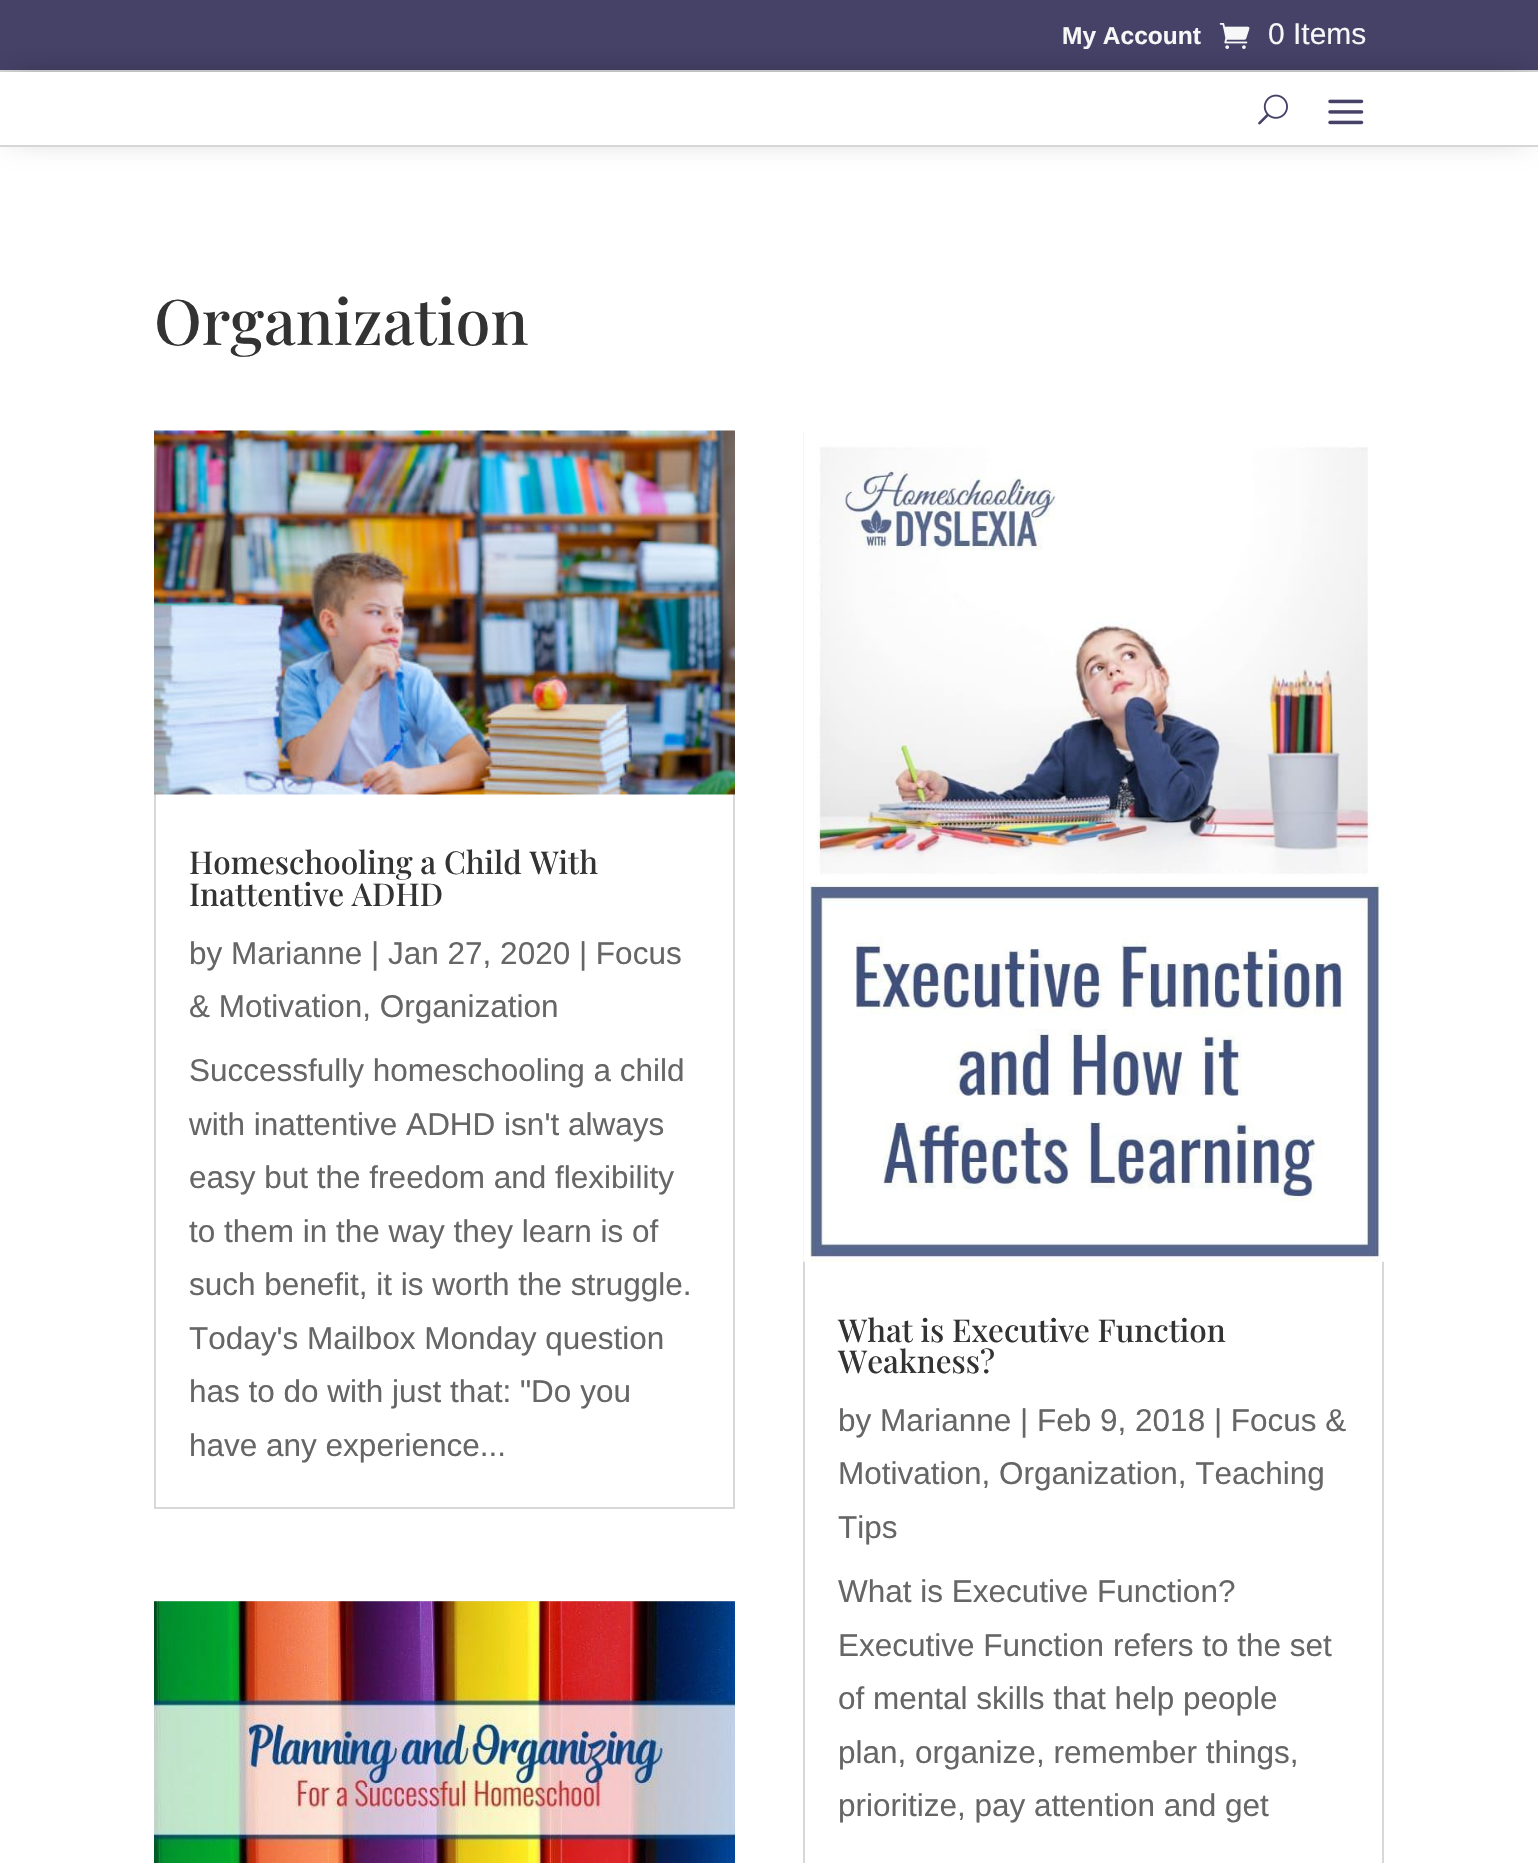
static SkFont makeFont(const char* family, int weight, float size, bool italic = false) {
  SkFontStyle style(weight, SkFontStyle::kNormal_Width,
    italic ? SkFontStyle::kItalic_Slant : SkFontStyle::kUpright_Slant);
  SkFont result(fontMgr->matchFamilyStyle(family, style), size);
  result.setSubpixel(true);
  return result;
}

static void text(SkCanvas* c, const char* s, float x, float y, const SkFont& font, SkColor color) {
  SkPaint ink(SkColor4f::FromColor(color));
  ink.setAntiAlias(true);
  c->drawString(s, x, y, font, ink);
}

static void box(SkCanvas* c, float l, float t, float r, float b, SkColor color) {
  SkPaint ink(SkColor4f::FromColor(color));
  ink.setAntiAlias(true);
  c->drawRect(SkRect::MakeLTRB(l, t, r, b), ink);
}

static void picture(SkCanvas* c, const char* path, float l, float t, float r, float b) {
  auto image = SkImages::DeferredFromEncodedData(SkData::MakeFromFileName(path));
  c->drawImageRect(image, SkRect::MakeLTRB(l, t, r, b), SkSamplingOptions());
}

void draw(SkCanvas* c) {
  SkPaint paint;
  paint.setAntiAlias(true);
  c->clear(0xffffffff);
  box(c, 0, 0, 1538, 70, 0xff454167);
  box(c, 0, 70, 1538, 72, 0xffd6d6d6);
  SkFont face1 = makeFont("Liberation Sans", 700, 24.5f);
  text(c, "My Account", 1062, 44, face1, 0xfff7f7f7);
  picture(c, "img_01.png", 1219, 23, 1250, 49);
  SkFont face2 = makeFont("Liberation Sans", 400, 30);
  text(c, "0 Items", 1268, 44, face2, 0xfff7f7f7);
  paint.setColor(0x4d000000);
  paint.setMaskFilter(SkMaskFilter::MakeBlur(kNormal_SkBlurStyle, 16));
  c->drawRect(SkRect::MakeLTRB(11, 79, 1528, 133), paint);
  paint.setMaskFilter(nullptr);
  box(c, 0, 72, 1538, 145, 0xffffffff);
  box(c, 0, 145, 1538, 147, 0xffd6d6d6);
  picture(c, "img_02.png", 1258, 94, 1288, 125);
  picture(c, "img_03.png", 1328, 99, 1364, 125);
  SkFont face3 = makeFont("Playfair Display", 500, 63);
  text(c, "Organization", 154, 345, face3, 0xff333333);
  paint.setStyle(SkPaint::kStroke_Style);
  paint.setStrokeWidth(2);
  paint.setColor(0xffd8d8d8);
  c->drawRect(SkRect::MakeLTRB(155, 432, 734, 1508), paint);
  picture(c, "img_04.png", 154, 430, 735, 795);
  SkFont face4 = makeFont("Playfair Display", 500, 31.5f);
  text(c, "Homeschooling a Child With", 189, 874, face4, 0xff333333);
  text(c, "Inattentive ADHD", 189, 906, face4, 0xff333333);
  SkFont face5 = makeFont("Liberation Sans", 400, 31.5f);
  text(c, "by Marianne | Jan 27, 2020 | Focus", 189, 964, face5, 0xff666666);
  text(c, "& Motivation, Organization", 189, 1017, face5, 0xff666666);
  text(c, "Successfully homeschooling a child", 189, 1081, face5, 0xff666666);
  text(c, "with inattentive ADHD isn't always", 189, 1135, face5, 0xff666666);
  text(c, "easy but the freedom and flexibility", 189, 1188, face5, 0xff666666);
  text(c, "to them in the way they learn is of", 189, 1242, face5, 0xff666666);
  text(c, "such benefit, it is worth the struggle.", 189, 1295, face5, 0xff666666);
  text(c, "Today's Mailbox Monday question", 189, 1349, face5, 0xff666666);
  text(c, "has to do with just that: \"Do you", 189, 1402, face5, 0xff666666);
  text(c, "have any experience...", 189, 1456, face5, 0xff666666);
  c->drawRect(SkRect::MakeLTRB(155, 1602, 734, 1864), paint);
  picture(c, "img_05.png", 154, 1601, 735, 1863);
  c->drawRect(SkRect::MakeLTRB(804, 432, 1383, 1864), paint);
  picture(c, "img_06.png", 803, 431, 1384, 1262);
  text(c, "What is Executive Function", 838, 1342, face4, 0xff333333);
  text(c, "Weakness?", 838, 1373, face4, 0xff333333);
  text(c, "by Marianne | Feb 9, 2018 | Focus &", 838, 1431, face5, 0xff666666);
  text(c, "Motivation, Organization, Teaching", 838, 1484, face5, 0xff666666);
  text(c, "Tips", 838, 1538, face5, 0xff666666);
  text(c, "What is Executive Function?", 838, 1602, face5, 0xff666666);
  text(c, "Executive Function refers to the set", 838, 1656, face5, 0xff666666);
  text(c, "of mental skills that help people", 838, 1709, face5, 0xff666666);
  text(c, "plan, organize, remember things,", 838, 1763, face5, 0xff666666);
  text(c, "prioritize, pay attention and get", 838, 1816, face5, 0xff666666);
}
